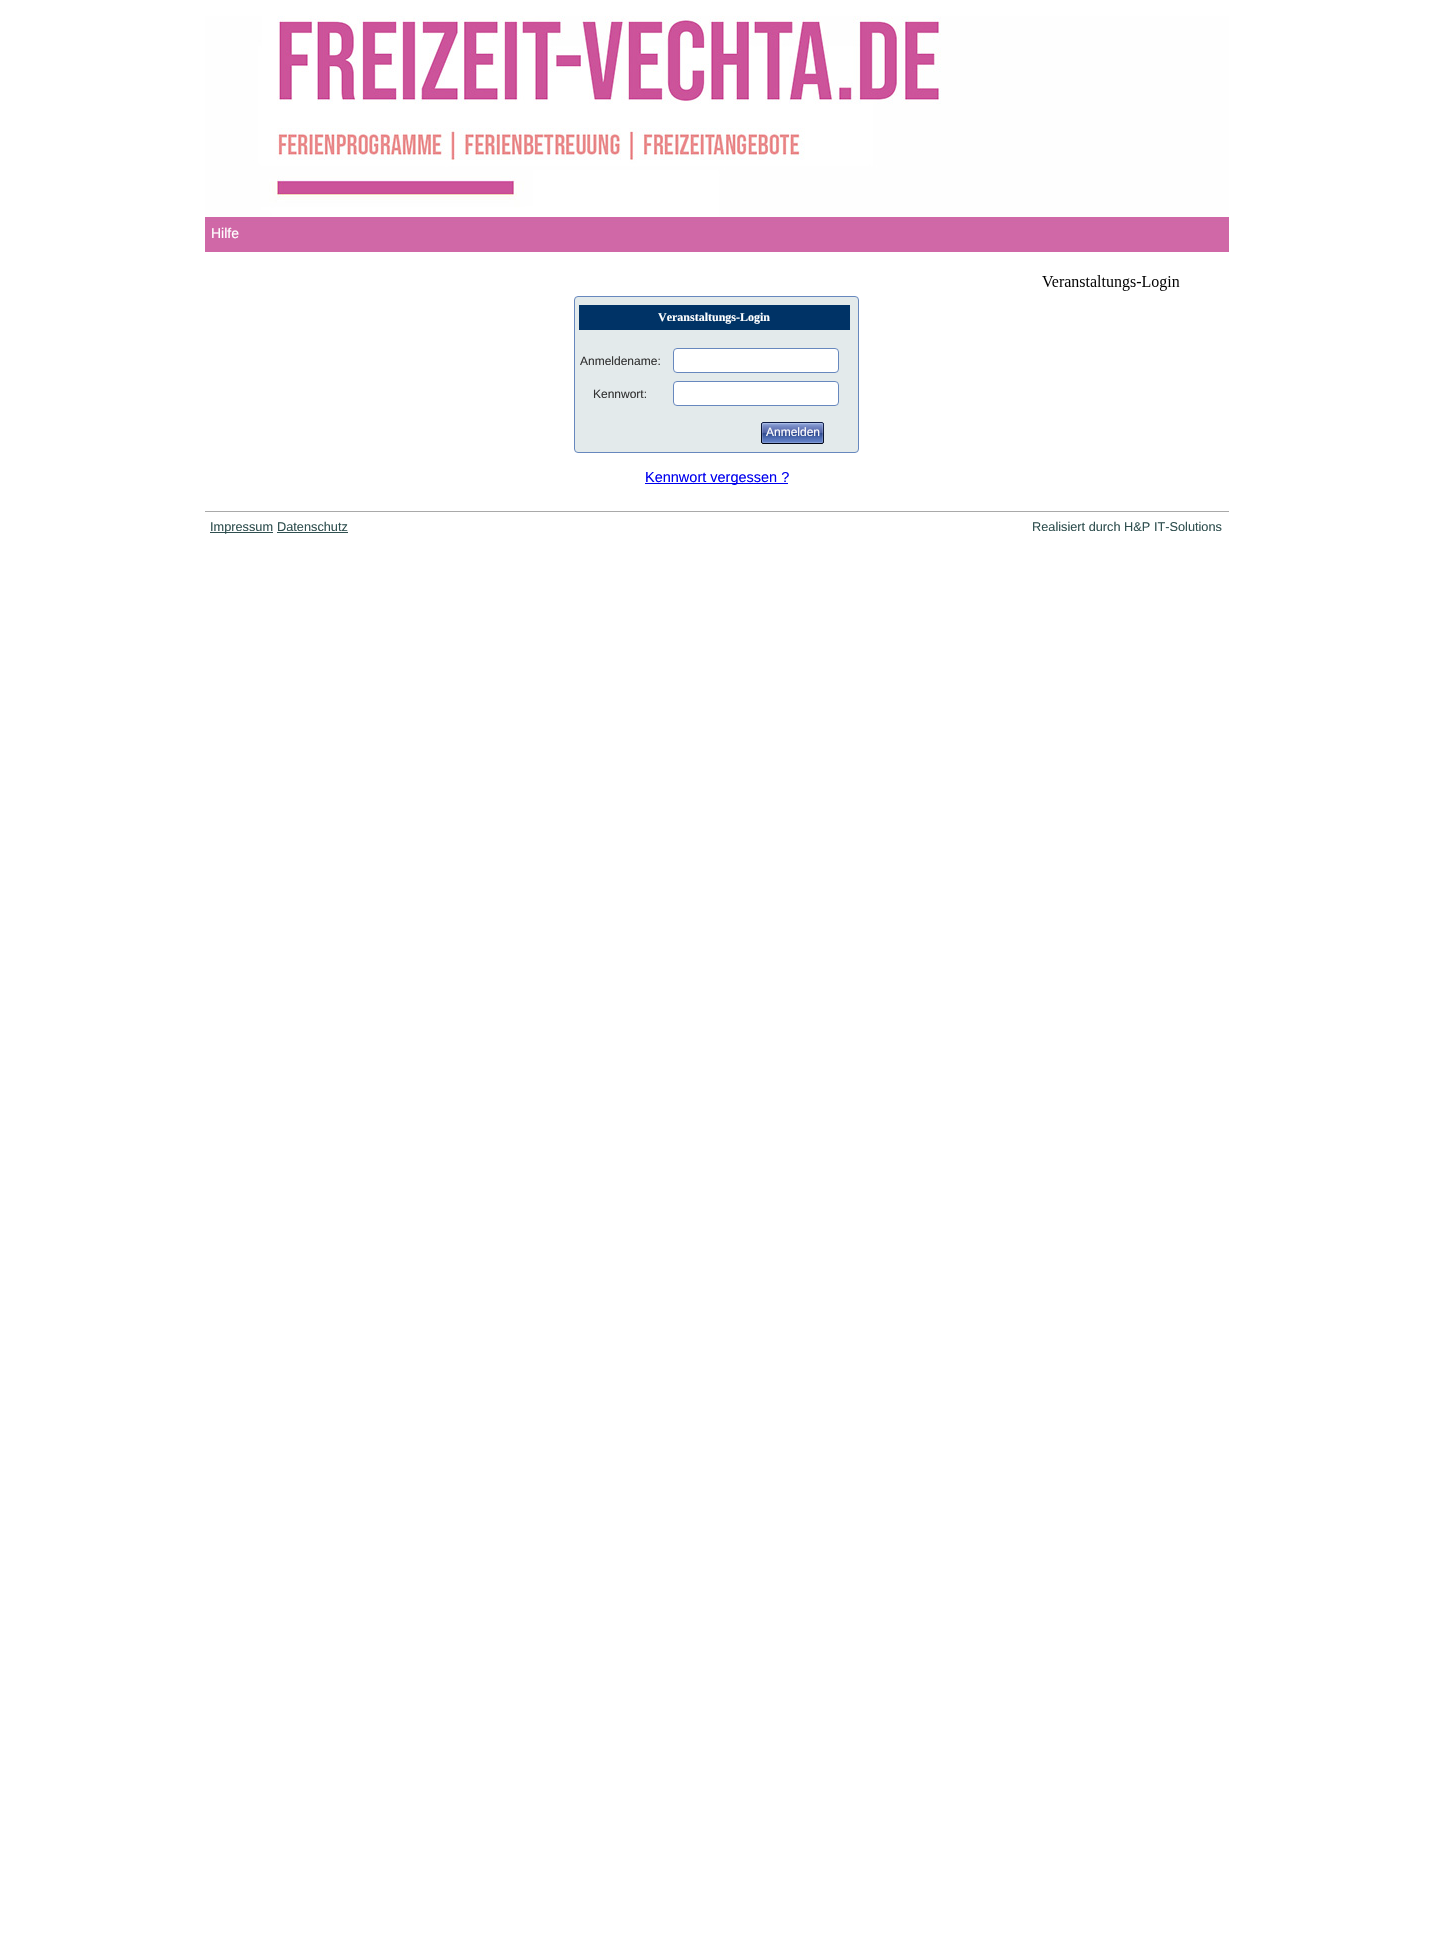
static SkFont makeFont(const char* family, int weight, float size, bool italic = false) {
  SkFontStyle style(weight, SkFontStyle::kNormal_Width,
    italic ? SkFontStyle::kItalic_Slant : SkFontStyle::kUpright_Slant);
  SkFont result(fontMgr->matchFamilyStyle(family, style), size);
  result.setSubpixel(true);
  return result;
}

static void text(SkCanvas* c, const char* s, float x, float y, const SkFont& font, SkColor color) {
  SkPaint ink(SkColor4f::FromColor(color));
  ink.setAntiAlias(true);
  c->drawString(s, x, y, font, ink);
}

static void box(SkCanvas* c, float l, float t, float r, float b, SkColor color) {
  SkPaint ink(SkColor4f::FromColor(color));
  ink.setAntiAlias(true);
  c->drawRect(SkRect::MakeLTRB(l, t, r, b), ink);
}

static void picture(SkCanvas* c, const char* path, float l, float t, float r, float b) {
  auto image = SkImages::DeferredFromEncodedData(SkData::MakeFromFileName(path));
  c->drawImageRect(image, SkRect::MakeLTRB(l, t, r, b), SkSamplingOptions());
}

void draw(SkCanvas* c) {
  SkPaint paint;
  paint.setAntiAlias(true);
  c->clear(0xffffffff);
  picture(c, "img_01.png", 205, 16, 1229, 252);
  SkFont face1 = makeFont("Liberation Sans", 400, 14);
  text(c, "Hilfe", 211, 238, face1, 0xffffffff);
  picture(c, "img_02.png", 1042, 275, 1180, 291);
  paint.setColor(0xffe3eaeb);
  c->drawRoundRect(SkRect::MakeLTRB(574.5f, 296.5f, 858.5f, 452.5f), 3.5f, 3.5f, paint);
  paint.setStyle(SkPaint::kStroke_Style);
  paint.setStrokeWidth(1);
  paint.setColor(0xff6788be);
  c->drawRoundRect(SkRect::MakeLTRB(574.5f, 296.5f, 858.5f, 452.5f), 3.5f, 3.5f, paint);
  box(c, 579, 305, 850, 330, 0xff003366);
  SkFont face2 = makeFont("Liberation Serif", 700, 12);
  text(c, "Veranstaltungs-Login", 658, 321, face2, 0xffffffff);
  SkFont face3 = makeFont("Liberation Sans", 400, 12);
  text(c, "Anmeldename:", 580, 365, face3, 0xff333333);
  paint.setStyle(SkPaint::kFill_Style);
  paint.setColor(0xffffffff);
  c->drawRoundRect(SkRect::MakeLTRB(673.5f, 348.5f, 838.5f, 372.5f), 3.5f, 3.5f, paint);
  paint.setStyle(SkPaint::kStroke_Style);
  paint.setColor(0xff6788be);
  c->drawRoundRect(SkRect::MakeLTRB(673.5f, 348.5f, 838.5f, 372.5f), 3.5f, 3.5f, paint);
  text(c, "Kennwort:", 593, 398, face3, 0xff333333);
  paint.setStyle(SkPaint::kFill_Style);
  paint.setColor(0xffffffff);
  c->drawRoundRect(SkRect::MakeLTRB(673.5f, 381.5f, 838.5f, 405.5f), 3.5f, 3.5f, paint);
  paint.setStyle(SkPaint::kStroke_Style);
  paint.setColor(0xff6788be);
  c->drawRoundRect(SkRect::MakeLTRB(673.5f, 381.5f, 838.5f, 405.5f), 3.5f, 3.5f, paint);
  picture(c, "img_03.png", 821, 422, 824, 444);
  picture(c, "img_04.png", 761, 422, 821, 444);
  text(c, "Anmelden", 766, 436, face3, 0xffffffff);
  box(c, 645, 483, 788, 484, 0xff0000ee);
  SkFont face4 = makeFont("Liberation Sans", 400, 14.5f);
  text(c, "Kennwort vergessen ?", 645, 482, face4, 0xff0000ee);
  box(c, 205, 511, 1229, 512, 0xffa9a9a9);
  box(c, 210, 532, 273, 533, 0xff2f4f4f);
  SkFont face5 = makeFont("Liberation Sans", 400, 12.75f);
  text(c, "Impressum", 210, 531, face5, 0xff2f4f4f);
  text(c, "Datenschutz", 277, 531, face5, 0xff2f4f4f);
  box(c, 277, 532, 348, 533, 0xff2f4f4f);
  text(c, "Realisiert durch H&P IT-Solutions", 1032, 531, face5, 0xff2f4f4f);
}
